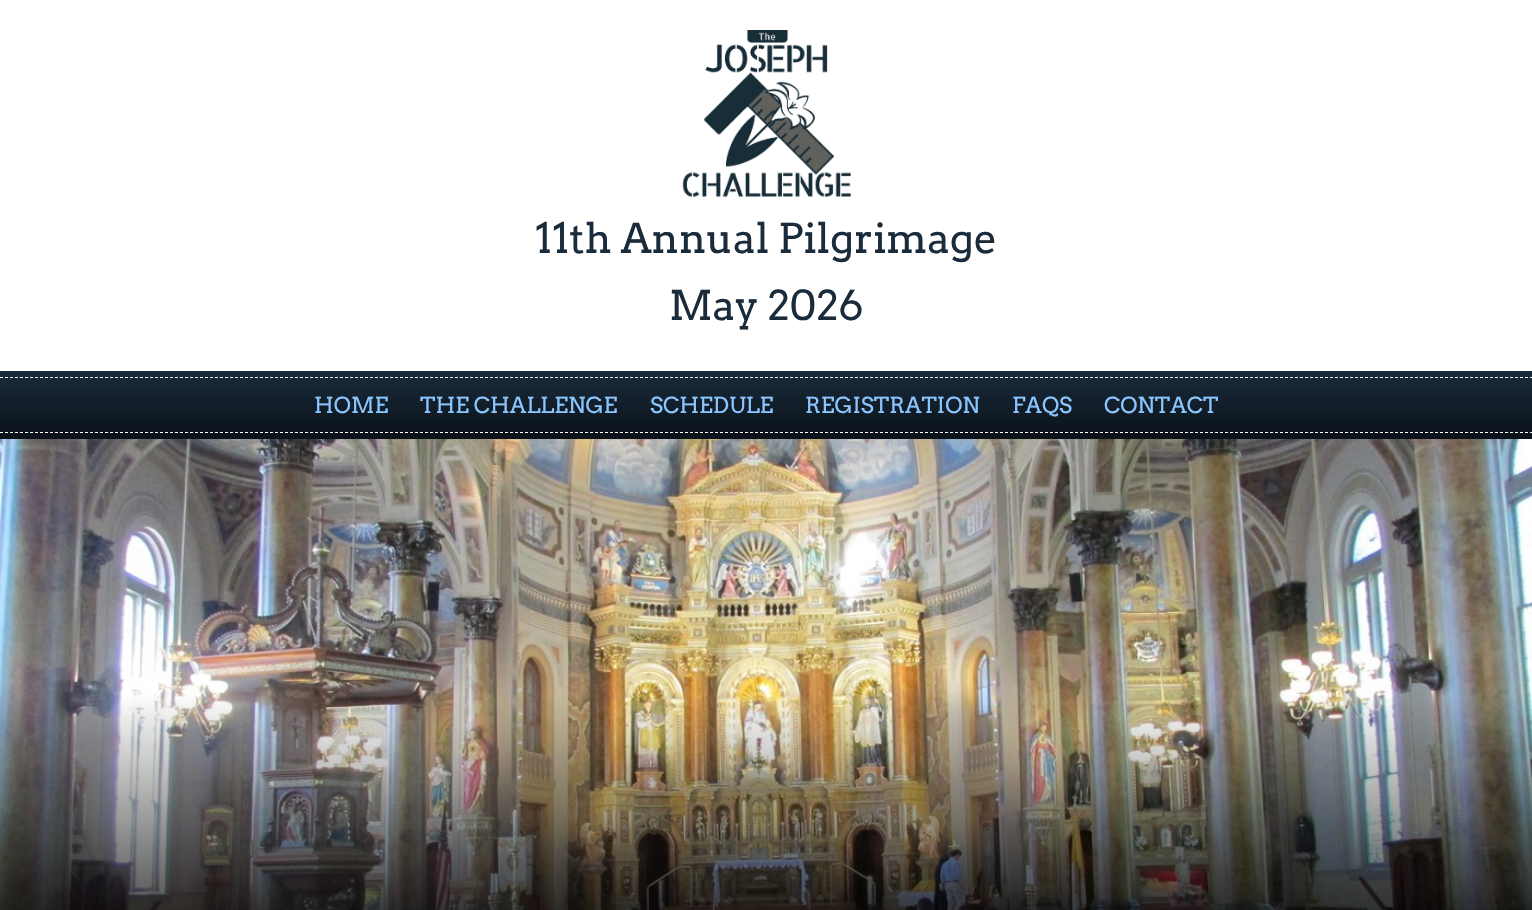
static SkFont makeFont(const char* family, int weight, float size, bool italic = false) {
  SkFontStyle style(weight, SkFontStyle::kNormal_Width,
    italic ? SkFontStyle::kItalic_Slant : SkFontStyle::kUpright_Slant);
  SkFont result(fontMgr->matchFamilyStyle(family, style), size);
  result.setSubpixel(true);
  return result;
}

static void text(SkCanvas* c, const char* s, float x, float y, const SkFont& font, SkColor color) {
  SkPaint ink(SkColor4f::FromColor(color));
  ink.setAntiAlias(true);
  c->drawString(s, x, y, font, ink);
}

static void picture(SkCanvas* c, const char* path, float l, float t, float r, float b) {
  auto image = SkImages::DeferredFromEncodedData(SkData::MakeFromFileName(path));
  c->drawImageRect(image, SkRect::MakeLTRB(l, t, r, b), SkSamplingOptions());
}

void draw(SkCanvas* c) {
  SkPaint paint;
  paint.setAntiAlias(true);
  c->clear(0xffffffff);
  picture(c, "img_01.png", 682, 30, 851, 197);
  SkFont face1 = makeFont("Arvo", 400, 41);
  text(c, "11th Annual Pilgrimage", 535, 253, face1, 0xff1a2b3b);
  text(c, "May 2026", 669, 320, face1, 0xff1a2b3b);
  {
    const SkColor colors[] = {0xff1a2b3b, 0xff0a1118};
    const float stops[] = {0, 1};
    const SkPoint ends[] = {{766, 371}, {766, 439}};
    paint.setShader(SkGradientShader::MakeLinear(ends, colors, stops, 2, SkTileMode::kClamp));
    paint.setAlpha(255);
  }
  c->drawRect(SkRect::MakeLTRB(0, 371, 1532, 439), paint);
  paint.setStyle(SkPaint::kStroke_Style);
  paint.setStrokeWidth(1);
  paint.setShader(nullptr);
  paint.setColor(0xffffffff);
  paint.setPathEffect(SkDashPathEffect::Make({{3, 2}}, 0));
  c->drawPath(SkPathBuilder().moveTo(0, 377.5f).lineTo(1532, 377.5f).detach(), paint);
  paint.setPathEffect(nullptr);
  paint.setPathEffect(SkDashPathEffect::Make({{3, 2}}, 0));
  c->drawPath(SkPathBuilder().moveTo(0, 432.5f).lineTo(1532, 432.5f).detach(), paint);
  paint.setPathEffect(nullptr);
  SkFont face2 = makeFont("Arvo", 400, 22);
  text(c, "HOME", 314, 413, face2, 0xff8ac6ff);
  text(c, "THE CHALLENGE", 420, 413, face2, 0xff8ac6ff);
  text(c, "SCHEDULE", 650, 413, face2, 0xff8ac6ff);
  text(c, "REGISTRATION", 805, 413, face2, 0xff8ac6ff);
  text(c, "FAQS", 1012, 413, face2, 0xff8ac6ff);
  text(c, "CONTACT", 1104, 413, face2, 0xff8ac6ff);
  picture(c, "img_02.png", 0, 439, 1532, 910);
}
